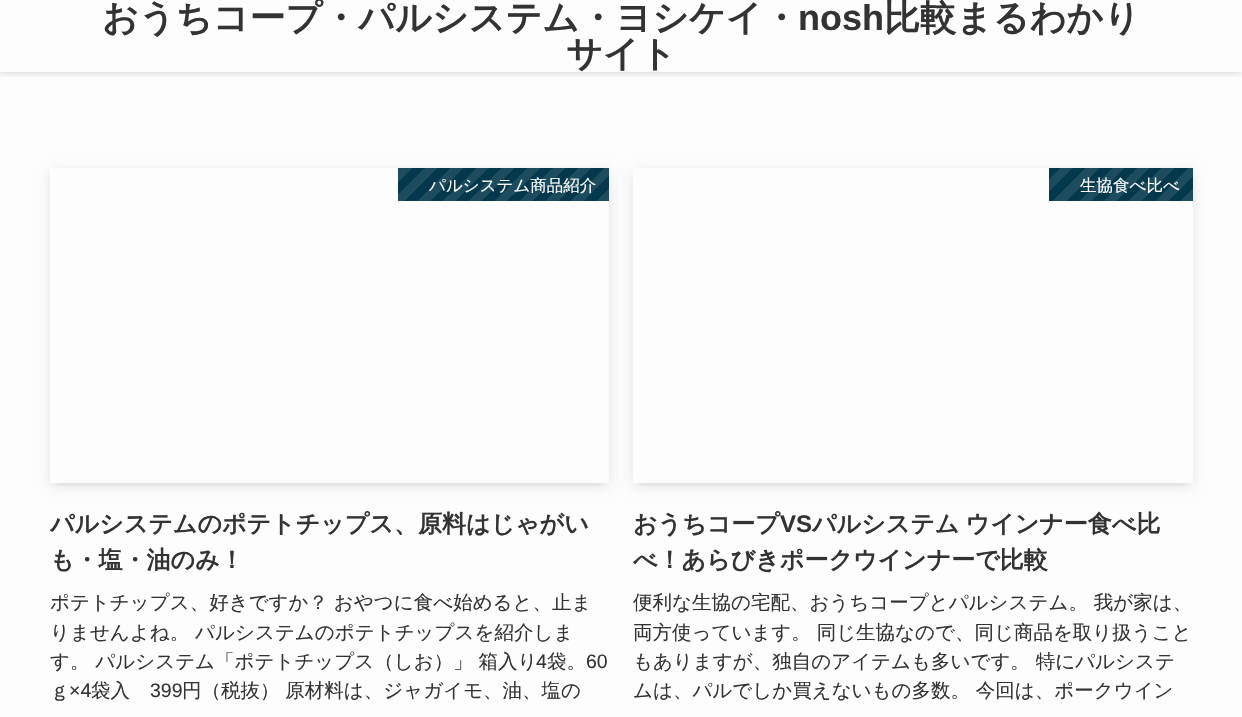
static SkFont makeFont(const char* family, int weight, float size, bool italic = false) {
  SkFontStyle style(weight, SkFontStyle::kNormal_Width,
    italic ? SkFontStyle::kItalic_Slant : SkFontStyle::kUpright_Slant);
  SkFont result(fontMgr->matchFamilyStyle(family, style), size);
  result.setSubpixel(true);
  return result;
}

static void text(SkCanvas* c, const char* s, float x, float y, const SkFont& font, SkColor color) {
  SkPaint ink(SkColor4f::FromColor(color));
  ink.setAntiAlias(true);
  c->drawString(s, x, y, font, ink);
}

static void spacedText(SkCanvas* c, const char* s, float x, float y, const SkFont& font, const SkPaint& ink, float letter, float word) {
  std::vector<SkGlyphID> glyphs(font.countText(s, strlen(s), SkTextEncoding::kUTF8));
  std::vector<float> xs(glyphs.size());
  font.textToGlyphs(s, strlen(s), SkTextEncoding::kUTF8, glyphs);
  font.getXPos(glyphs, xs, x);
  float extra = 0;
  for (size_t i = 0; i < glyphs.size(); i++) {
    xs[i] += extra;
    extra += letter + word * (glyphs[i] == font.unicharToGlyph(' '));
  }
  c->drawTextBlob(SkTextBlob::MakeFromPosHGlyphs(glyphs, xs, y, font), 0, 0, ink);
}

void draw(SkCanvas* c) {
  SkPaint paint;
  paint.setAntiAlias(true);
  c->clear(0xfffdfdfd);
  c->save();
  c->clipRect(SkRect::MakeLTRB(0, 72, 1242, 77));
  paint.setColor(0x1f000000);
  paint.setMaskFilter(SkMaskFilter::MakeBlur(kNormal_SkBlurStyle, 3));
  c->drawRect(SkRect::MakeLTRB(0, 2, 1242, 74), paint);
  paint.setMaskFilter(nullptr);
  c->restore();
  SkFont face1 = makeFont("WenQuanYi Zen Hei", 700, 36);
  text(c, "おうちコープ・パルシステム・ヨシケイ・", 102, 30, face1, 0xff333333);
  SkFont face2 = makeFont("Liberation Sans", 700, 36);
  text(c, "nosh", 798, 30, face2, 0xff333333);
  text(c, "比較まるわかり", 884, 30, face1, 0xff333333);
  text(c, "サイト", 566, 66, face1, 0xff333333);
  c->save();
  c->clipRect(SkRect::MakeLTRB(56, 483, 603, 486));
  paint.setColor(0x1a000000);
  paint.setMaskFilter(SkMaskFilter::MakeBlur(kNormal_SkBlurStyle, 3));
  c->drawRect(SkRect::MakeLTRB(56, 180, 603, 483), paint);
  paint.setMaskFilter(nullptr);
  c->restore();
  c->save();
  c->clipPath(SkPathBuilder(SkPathFillType::kEvenOdd).moveTo(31, 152).lineTo(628, 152).lineTo(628, 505).lineTo(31, 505).close().moveTo(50, 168).lineTo(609, 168).lineTo(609, 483).lineTo(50, 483).close().detach(), true);
  paint.setMaskFilter(SkMaskFilter::MakeBlur(kNormal_SkBlurStyle, 6));
  c->drawRect(SkRect::MakeLTRB(50, 171, 609, 486), paint);
  paint.setMaskFilter(nullptr);
  c->restore();
  {
    const SkColor colors[] = {0xff1d4c5e, 0xff1d4c5e, 0xff04384c, 0xff04384c, 0xff1d4c5e, 0xff1d4c5e, 0xff04384c, 0xff04384c, 0xff1d4c5e, 0xff1d4c5e, 0xff04384c, 0xff04384c, 0xff1d4c5e, 0xff1d4c5e, 0xff04384c, 0xff04384c, 0xff1d4c5e, 0xff1d4c5e, 0xff04384c, 0xff04384c, 0xff1d4c5e, 0xff1d4c5e, 0xff04384c, 0xff04384c, 0xff1d4c5e, 0xff1d4c5e, 0xff04384c, 0xff04384c, 0xff1d4c5e, 0xff1d4c5e, 0xff04384c, 0xff04384c, 0xff1d4c5e, 0xff1d4c5e, 0xff04384c, 0xff04384c, 0xff1d4c5e, 0xff1d4c5e, 0xff04384c, 0xff04384c};
    const float stops[] = {0, 0.05f, 0.05f, 0.1f, 0.1f, 0.15f, 0.15f, 0.2f, 0.2f, 0.25f, 0.25f, 0.3f, 0.3f, 0.35f, 0.35f, 0.4f, 0.4f, 0.45f, 0.45f, 0.5f, 0.5f, 0.55f, 0.55f, 0.6f, 0.6f, 0.65f, 0.65f, 0.7f, 0.7f, 0.75f, 0.75f, 0.8f, 0.8f, 0.85f, 0.85f, 0.9f, 0.9f, 0.95f, 0.95f, 1};
    const SkPoint ends[] = {{564, 246}, {437, 118}};
    paint.setShader(SkGradientShader::MakeLinear(ends, colors, stops, 40, SkTileMode::kClamp));
    paint.setAlpha(255);
  }
  c->drawRect(SkRect::MakeLTRB(398, 168, 609, 201), paint);
  SkFont face3 = makeFont("WenQuanYi Zen Hei", 500, 16.5f);
  text(c, "パルシステム商品紹介", 429, 191, face3, 0xffffffff);
  SkFont face4 = makeFont("WenQuanYi Zen Hei", 700, 24);
  text(c, "パルシステムのポテトチップス、原料はじゃがい", 50, 532, face4, 0xff333333);
  text(c, "も・塩・油のみ！", 50, 568, face4, 0xff333333);
  SkFont face5 = makeFont("WenQuanYi Zen Hei", 500, 19.5f);
  text(c, "ポテトチップス、好きですか？ おやつに食べ始めると、止ま", 50, 609, face5, 0xff333333);
  text(c, "りませんよね。 パルシステムのポテトチップスを紹介しま", 50, 639, face5, 0xff333333);
  text(c, "す。 パルシステム「ポテトチップス（しお）」 箱入り", 50, 668, face5, 0xff333333);
  SkFont face6 = makeFont("Liberation Sans", 400, 19.5f);
  text(c, "4", 536, 668, face6, 0xff333333);
  text(c, "袋。", 547, 668, face5, 0xff333333);
  text(c, "60", 586, 668, face6, 0xff333333);
  text(c, "ｇ", 50, 697, face5, 0xff333333);
  text(c, "×4", 69, 697, face6, 0xff333333);
  text(c, "袋入", 91, 697, face5, 0xff333333);
  text(c, "399", 150, 697, face6, 0xff333333);
  text(c, "円（税抜） 原材料は、ジャガイモ、油、塩の", 182, 697, face5, 0xff333333);
  c->save();
  c->clipRect(SkRect::MakeLTRB(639, 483, 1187, 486));
  paint.setShader(nullptr);
  paint.setColor(0x1a000000);
  paint.setMaskFilter(SkMaskFilter::MakeBlur(kNormal_SkBlurStyle, 3));
  c->drawRect(SkRect::MakeLTRB(639, 180, 1187, 483), paint);
  paint.setMaskFilter(nullptr);
  c->restore();
  c->save();
  c->clipPath(SkPathBuilder(SkPathFillType::kEvenOdd).moveTo(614, 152).lineTo(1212, 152).lineTo(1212, 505).lineTo(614, 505).close().moveTo(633, 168).lineTo(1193, 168).lineTo(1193, 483).lineTo(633, 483).close().detach(), true);
  paint.setMaskFilter(SkMaskFilter::MakeBlur(kNormal_SkBlurStyle, 6));
  c->drawRect(SkRect::MakeLTRB(633, 171, 1193, 486), paint);
  paint.setMaskFilter(nullptr);
  c->restore();
  {
    const SkColor colors[] = {0xff1d4c5e, 0xff1d4c5e, 0xff04384c, 0xff04384c, 0xff1d4c5e, 0xff1d4c5e, 0xff04384c, 0xff04384c, 0xff1d4c5e, 0xff1d4c5e, 0xff04384c, 0xff04384c, 0xff1d4c5e, 0xff1d4c5e, 0xff04384c, 0xff04384c, 0xff1d4c5e, 0xff1d4c5e, 0xff04384c, 0xff04384c, 0xff1d4c5e, 0xff1d4c5e, 0xff04384c, 0xff04384c, 0xff1d4c5e, 0xff1d4c5e, 0xff04384c, 0xff04384c};
    const float stops[] = {0, 0.07f, 0.07f, 0.14f, 0.14f, 0.21f, 0.21f, 0.29f, 0.29f, 0.36f, 0.36f, 0.43f, 0.43f, 0.5f, 0.5f, 0.57f, 0.57f, 0.64f, 0.64f, 0.71f, 0.71f, 0.79f, 0.79f, 0.86f, 0.86f, 0.93f, 0.93f, 1};
    const SkPoint ends[] = {{1165, 229}, {1076, 140}};
    paint.setShader(SkGradientShader::MakeLinear(ends, colors, stops, 28, SkTileMode::kClamp));
    paint.setAlpha(255);
  }
  c->drawRect(SkRect::MakeLTRB(1049, 168, 1193, 201), paint);
  text(c, "生協食べ比べ", 1080, 191, face3, 0xffffffff);
  text(c, "おうちコープ", 633, 532, face4, 0xff333333);
  SkFont face7 = makeFont("Liberation Sans", 700, 24);
  text(c, "VS", 780, 532, face7, 0xff333333);
  paint.setShader(nullptr);
  paint.setColor(0xff333333);
  spacedText(c, "パルシステム ウインナー食べ比", 812, 532, face4, paint, 0, -1);
  text(c, "べ！あらびきポークウインナーで比較", 633, 568, face4, 0xff333333);
  text(c, "便利な生協の宅配、おうちコープとパルシステム。 我が家は、", 633, 609, face5, 0xff333333);
  text(c, "両方使っています。 同じ生協なので、同じ商品を取り扱うこと", 633, 639, face5, 0xff333333);
  text(c, "もありますが、独自のアイテムも多いです。 特にパルシステ", 633, 668, face5, 0xff333333);
  text(c, "ムは、パルでしか買えないもの多数。 今回は、ポークウイン", 633, 697, face5, 0xff333333);
}
